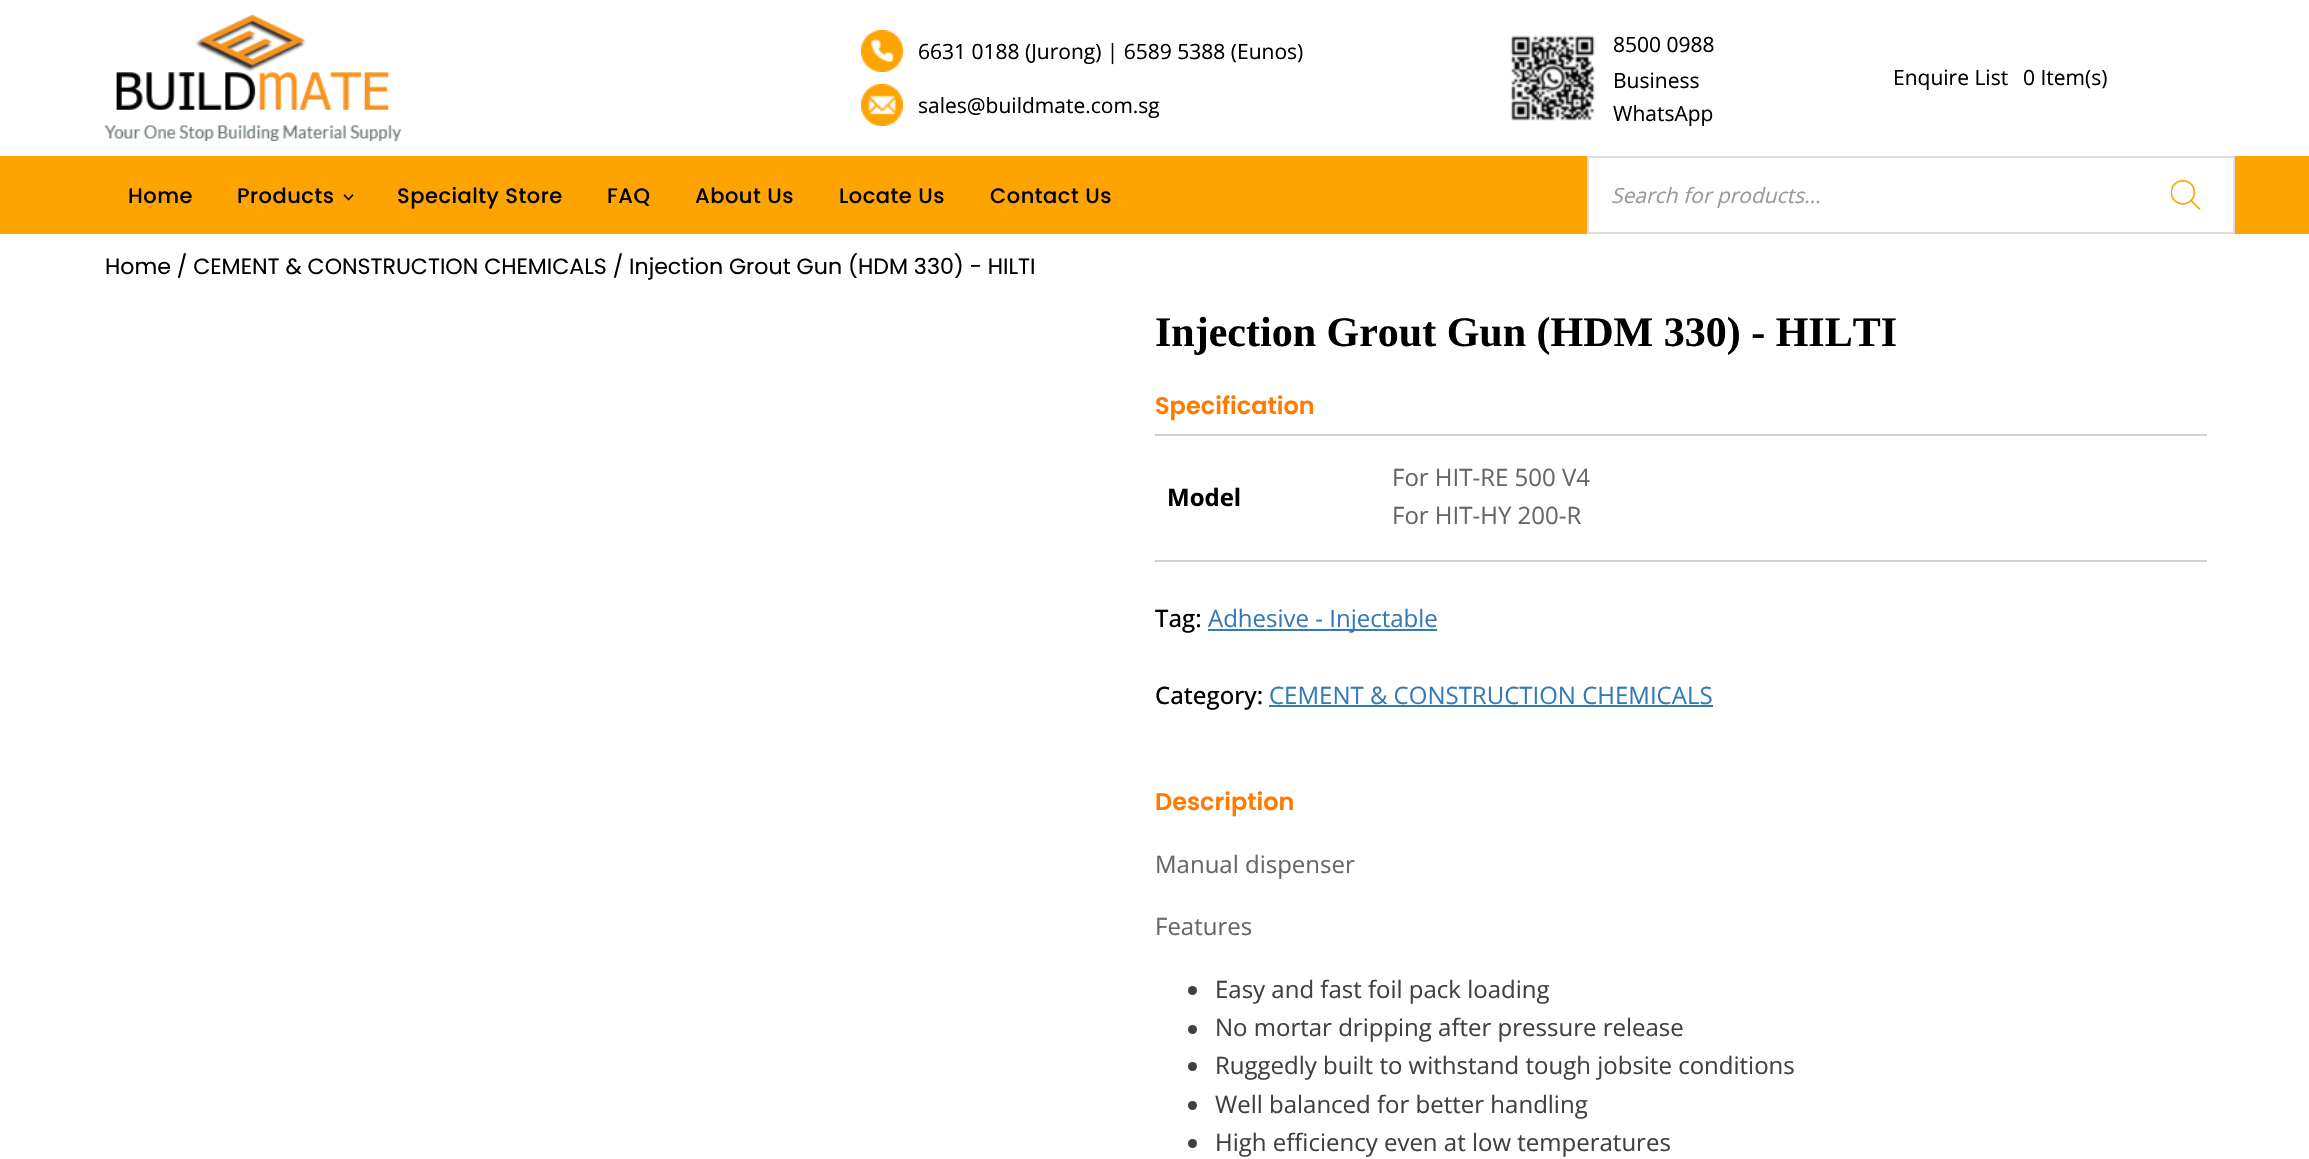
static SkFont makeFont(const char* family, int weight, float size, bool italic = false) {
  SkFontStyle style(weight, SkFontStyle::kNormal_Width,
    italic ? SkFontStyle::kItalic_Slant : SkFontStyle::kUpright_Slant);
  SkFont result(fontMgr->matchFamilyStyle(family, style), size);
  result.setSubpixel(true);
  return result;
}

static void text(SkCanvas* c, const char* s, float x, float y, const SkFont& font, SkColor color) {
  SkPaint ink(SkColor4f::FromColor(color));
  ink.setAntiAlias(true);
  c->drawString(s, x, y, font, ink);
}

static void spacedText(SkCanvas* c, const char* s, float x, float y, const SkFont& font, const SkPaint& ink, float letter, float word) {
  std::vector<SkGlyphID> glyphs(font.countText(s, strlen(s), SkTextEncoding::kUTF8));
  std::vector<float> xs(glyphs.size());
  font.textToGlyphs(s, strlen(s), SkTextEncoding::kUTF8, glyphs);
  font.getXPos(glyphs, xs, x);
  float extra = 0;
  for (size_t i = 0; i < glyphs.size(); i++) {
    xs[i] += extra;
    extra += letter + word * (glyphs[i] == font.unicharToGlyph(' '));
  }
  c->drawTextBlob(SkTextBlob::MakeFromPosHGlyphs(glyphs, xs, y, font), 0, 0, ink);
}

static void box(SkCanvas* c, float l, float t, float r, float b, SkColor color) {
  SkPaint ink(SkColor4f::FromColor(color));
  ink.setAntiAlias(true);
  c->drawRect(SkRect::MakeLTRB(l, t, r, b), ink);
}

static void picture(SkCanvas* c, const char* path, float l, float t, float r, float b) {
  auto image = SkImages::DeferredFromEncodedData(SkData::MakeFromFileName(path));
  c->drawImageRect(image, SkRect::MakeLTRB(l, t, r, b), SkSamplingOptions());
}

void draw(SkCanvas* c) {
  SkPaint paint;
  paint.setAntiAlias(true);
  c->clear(0xffffffff);
  picture(c, "img_01.png", 105, 15, 402, 141);
  picture(c, "img_02.png", 861, 30, 903, 72);
  SkFont face1 = makeFont("Open Sans", 400, 21);
  text(c, "6631 0188 (Jurong) | 6589 5388 (Eunos)", 918, 59, face1, 0xff000000);
  picture(c, "img_03.png", 861, 84, 903, 126);
  text(c, "sales@buildmate.com.sg", 918, 113, face1, 0xff000000);
  picture(c, "img_04.png", 1510, 35, 1595, 121);
  text(c, "8500 0988", 1613, 52, face1, 0xff000000);
  text(c, "Business", 1613, 88, face1, 0xff000000);
  text(c, "WhatsApp", 1613, 121, face1, 0xff000000);
  text(c, "Enquire List", 1893, 85, face1, 0xff000000);
  text(c, "0 Item(s)", 2023, 85, face1, 0xff000000);
  box(c, 0, 156, 2309, 234, 0xfffda403);
  SkFont face2 = makeFont("Poppins", 500, 21);
  paint.setColor(0xff000000);
  spacedText(c, "Home", 128, 203, face2, paint, 0.5f, 0);
  spacedText(c, "Products", 237, 203, face2, paint, 0.5f, 0);
  c->drawPath(SkPathBuilder().moveTo(353.5f, 195.5f).lineTo(348.5f, 200.5f).lineTo(347.5f, 199.5f).lineTo(352.5f, 194).close().detach(), paint);
  c->drawPath(SkPathBuilder().moveTo(349.5f, 199.5f).lineTo(348.5f, 200.5f).lineTo(343.5f, 195.5f).lineTo(344.5f, 194).close().detach(), paint);
  spacedText(c, "Specialty Store", 397, 203, face2, paint, 0.5f, 0);
  spacedText(c, "FAQ", 607, 203, face2, paint, 0.5f, 0);
  spacedText(c, "About Us", 695, 203, face2, paint, 0.5f, 0);
  spacedText(c, "Locate Us", 839, 203, face2, paint, 0.5f, 0);
  spacedText(c, "Contact Us", 990, 203, face2, paint, 0.5f, 0);
  paint.setColor(0xffffffff);
  c->drawRect(SkRect::MakeLTRB(1588, 157, 2234, 233), paint);
  paint.setStyle(SkPaint::kStroke_Style);
  paint.setStrokeWidth(2);
  paint.setColor(0xffdddddd);
  c->drawRect(SkRect::MakeLTRB(1588, 157, 2234, 233), paint);
  SkFont face3 = makeFont("Open Sans", 400, 21, true);
  text(c, "Search for products...", 1611, 203, face3, 0xff999999);
  picture(c, "img_05.png", 2171, 180, 2201, 210);
  SkFont face4 = makeFont("Poppins", 400, 22.1f);
  text(c, "Home / CEMENT & CONSTRUCTION CHEMICALS / Injection Grout Gun (HDM 330) - HILTI", 105, 274, face4, 0xff000000);
  SkFont face5 = makeFont("Liberation Serif", 700, 42);
  text(c, "Injection Grout Gun (HDM 330) - HILTI", 1155, 346, face5, 0xff000000);
  SkFont face6 = makeFont("Poppins", 600, 24);
  text(c, "Specification", 1155, 414, face6, 0xffff7a00);
  box(c, 1155, 434, 2207, 436, 0xffd3ced2);
  SkFont face7 = makeFont("Open Sans", 700, 24);
  text(c, "Model", 1167, 506, face7, 0xff000000);
  box(c, 1155, 560, 2207, 562, 0xffd3ced2);
  SkFont face8 = makeFont("Open Sans", 400, 24);
  text(c, "For HIT-RE 500 V4", 1392, 486, face8, 0xff666666);
  text(c, "For HIT-HY 200-R", 1392, 524, face8, 0xff666666);
  SkFont face9 = makeFont("Open Sans", 500, 24);
  text(c, "Tag:", 1155, 627, face9, 0xff000000);
  box(c, 1208, 629, 1437, 631, 0xff337ab7);
  text(c, "Adhesive - Injectable", 1208, 627, face8, 0xff337ab7);
  text(c, "Category:", 1155, 704, face9, 0xff000000);
  text(c, "CEMENT & CONSTRUCTION CHEMICALS", 1269, 704, face8, 0xff337ab7);
  box(c, 1269, 705, 1713, 707, 0xff337ab7);
  text(c, "Description", 1155, 810, face6, 0xffff7a00);
  text(c, "Manual dispenser", 1155, 873, face8, 0xff666666);
  text(c, "Features", 1155, 935, face8, 0xff666666);
  paint.setStyle(SkPaint::kFill_Style);
  paint.setColor(0xff404040);
  c->drawCircle(1192.5f, 990.5f, 4.5f, paint);
  text(c, "Easy and fast foil pack loading", 1215, 998, face8, 0xff404040);
  c->drawCircle(1192.5f, 1029.5f, 4.5f, paint);
  text(c, "No mortar dripping after pressure release", 1215, 1036, face8, 0xff404040);
  c->drawCircle(1192.5f, 1066.5f, 4.5f, paint);
  text(c, "Ruggedly built to withstand tough jobsite conditions", 1215, 1074, face8, 0xff404040);
  c->drawCircle(1192.5f, 1105.5f, 4.5f, paint);
  text(c, "Well balanced for better handling", 1215, 1113, face8, 0xff404040);
  c->drawCircle(1192.5f, 1143.5f, 4.5f, paint);
  text(c, "High efficiency even at low temperatures", 1215, 1151, face8, 0xff404040);
}
